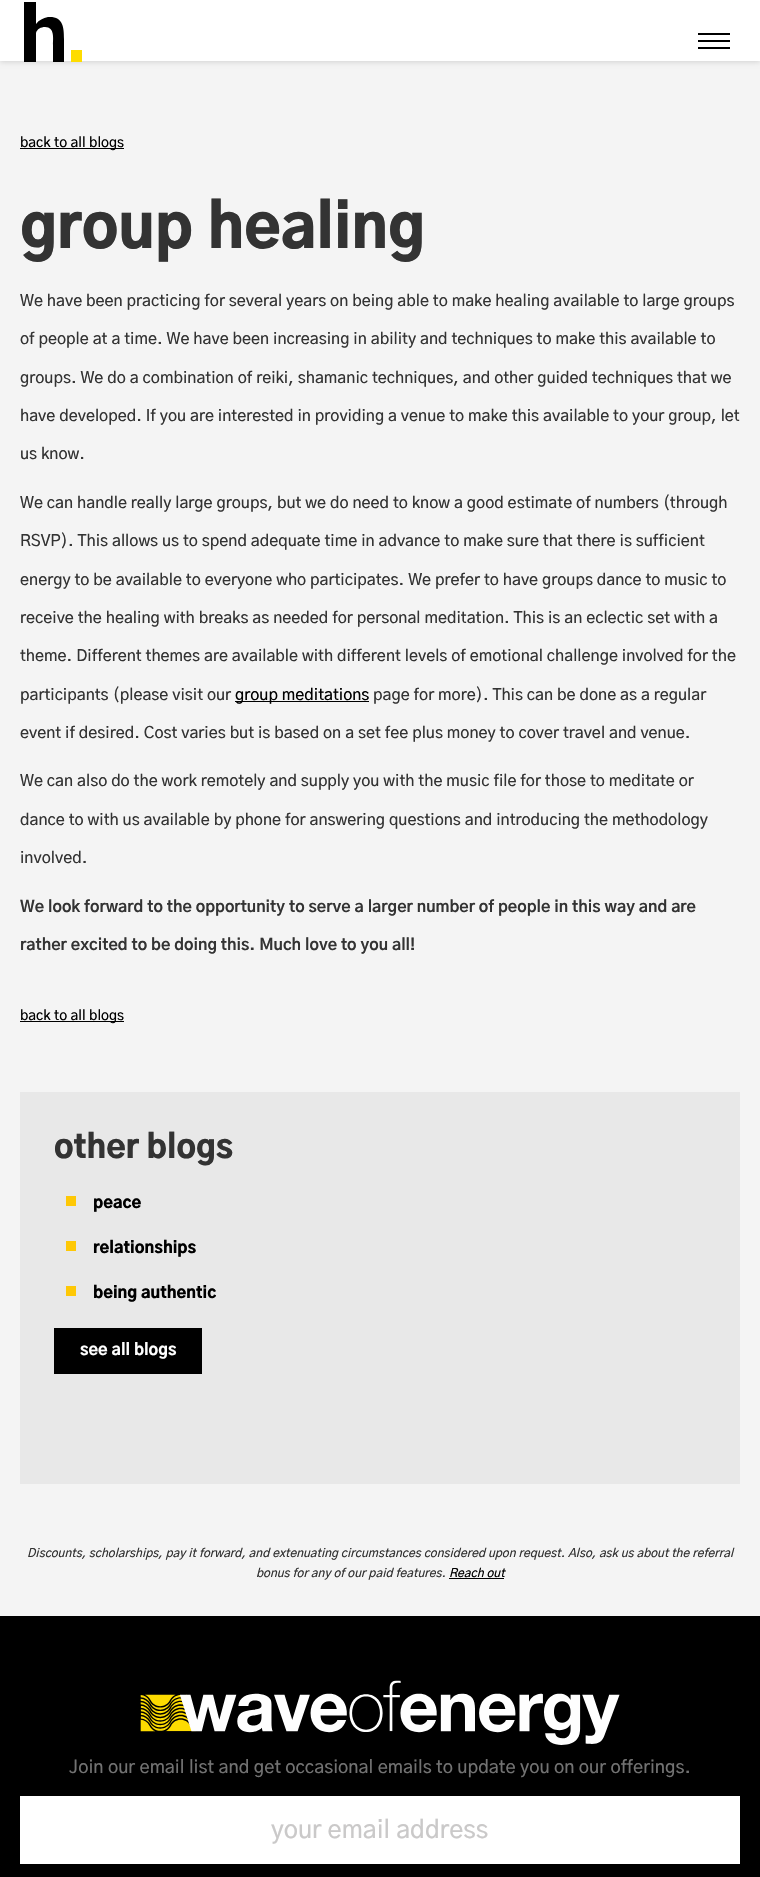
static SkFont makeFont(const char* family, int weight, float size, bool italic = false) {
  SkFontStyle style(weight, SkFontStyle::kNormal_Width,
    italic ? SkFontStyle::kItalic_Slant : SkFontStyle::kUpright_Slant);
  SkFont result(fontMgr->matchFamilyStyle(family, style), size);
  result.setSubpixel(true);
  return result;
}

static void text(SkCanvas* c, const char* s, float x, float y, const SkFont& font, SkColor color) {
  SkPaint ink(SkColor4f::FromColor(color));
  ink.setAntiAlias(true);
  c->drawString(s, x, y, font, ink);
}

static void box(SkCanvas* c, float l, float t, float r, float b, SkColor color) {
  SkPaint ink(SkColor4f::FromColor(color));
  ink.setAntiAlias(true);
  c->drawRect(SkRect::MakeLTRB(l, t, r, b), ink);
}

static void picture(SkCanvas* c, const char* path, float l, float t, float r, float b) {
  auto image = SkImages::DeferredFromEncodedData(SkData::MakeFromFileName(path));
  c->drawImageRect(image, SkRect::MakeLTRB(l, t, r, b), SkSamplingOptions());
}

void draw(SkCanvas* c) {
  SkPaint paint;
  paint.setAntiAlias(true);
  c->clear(0xfff4f4f4);
  paint.setColor(0x24000000);
  paint.setMaskFilter(SkMaskFilter::MakeBlur(kNormal_SkBlurStyle, 2.5f));
  c->drawRect(SkRect::MakeLTRB(0, 1, 760, 62), paint);
  paint.setMaskFilter(nullptr);
  box(c, 0, 0, 760, 61, 0xffffffff);
  paint.setColor(0xff000000);
  c->drawPath(SkPathBuilder().moveTo(36, 2).lineTo(36, 24).cubicTo(39, 20, 43, 18, 48, 17).cubicTo(63, 16, 64, 27, 64, 39).lineTo(64, 62).lineTo(53, 62).lineTo(53, 45).cubicTo(53, 39, 55, 27, 45, 27).cubicTo(41, 27, 37, 29, 36, 33).lineTo(36, 62).lineTo(24, 62).lineTo(24, 2).close().detach(), paint);
  box(c, 71, 50, 82, 62, 0xfffedc00);
  box(c, 698, 33, 730, 35, 0xff000000);
  box(c, 698, 40, 730, 42, 0xff000000);
  box(c, 698, 47, 730, 49, 0xff000000);
  box(c, 20, 148, 124, 149, 0xff000000);
  SkFont face1 = makeFont("Gothic A1", 500, 14);
  text(c, "back to all blogs", 20, 147, face1, 0xff000000);
  SkFont face2 = makeFont("Gothic A1", 900, 60);
  text(c, "group healing", 20, 248, face2, 0xff333333);
  SkFont face3 = makeFont("Gothic A1", 500, 16);
  text(c, "We have been practicing for several years on being able to make healing available to large groups", 20, 306, face3, 0xff333333);
  text(c, "of people at a time. We have been increasing in ability and techniques to make this available to", 20, 344, face3, 0xff333333);
  text(c, "groups. We do a combination of reiki, shamanic techniques, and other guided techniques that we", 20, 383, face3, 0xff333333);
  text(c, "have developed. If you are interested in providing a venue to make this available to your group, let", 20, 421, face3, 0xff333333);
  text(c, "us know.", 20, 459, face3, 0xff333333);
  text(c, "We can handle really large groups, but we do need to know a good estimate of numbers (through", 20, 508, face3, 0xff333333);
  text(c, "RSVP). This allows us to spend adequate time in advance to make sure that there is sufficient", 20, 546, face3, 0xff333333);
  text(c, "energy to be available to everyone who participates. We prefer to have groups dance to music to", 20, 585, face3, 0xff333333);
  text(c, "receive the healing with breaks as needed for personal meditation. This is an eclectic set with a", 20, 623, face3, 0xff333333);
  text(c, "theme. Different themes are available with different levels of emotional challenge involved for the", 20, 661, face3, 0xff333333);
  text(c, "participants (please visit our", 20, 700, face3, 0xff333333);
  box(c, 235, 701, 369, 702, 0xff000000);
  text(c, "group meditations", 235, 700, face3, 0xff000000);
  text(c, "page for more). This can be done as a regular", 373, 700, face3, 0xff333333);
  text(c, "event if desired. Cost varies but is based on a set fee plus money to cover travel and venue.", 20, 738, face3, 0xff333333);
  text(c, "We can also do the work remotely and supply you with the music file for those to meditate or", 20, 786, face3, 0xff333333);
  text(c, "dance to with us available by phone for answering questions and introducing the methodology", 20, 825, face3, 0xff333333);
  text(c, "involved.", 20, 863, face3, 0xff333333);
  SkFont face4 = makeFont("Gothic A1", 700, 16);
  text(c, "We look forward to the opportunity to serve a larger number of people in this way and are", 20, 912, face4, 0xff333333);
  text(c, "rather excited to be doing this. Much love to you all!", 20, 950, face4, 0xff333333);
  box(c, 20, 1021, 124, 1022, 0xff000000);
  text(c, "back to all blogs", 20, 1020, face1, 0xff000000);
  box(c, 20, 1092, 740, 1484, 0xffe8e8e8);
  SkFont face5 = makeFont("Gothic A1", 900, 32);
  text(c, "other blogs", 54, 1158, face5, 0xff333333);
  box(c, 66, 1196, 76, 1206, 0xfffec806);
  SkFont face6 = makeFont("Gothic A1", 900, 16);
  text(c, "peace", 93, 1208, face6, 0xff000000);
  box(c, 66, 1241, 76, 1251, 0xfffec806);
  text(c, "relationships", 93, 1253, face6, 0xff000000);
  box(c, 66, 1286, 76, 1296, 0xfffec806);
  text(c, "being authentic", 93, 1298, face6, 0xff000000);
  box(c, 54, 1328, 202, 1374, 0xff000000);
  SkFont face7 = makeFont("Gothic A1", 800, 16);
  text(c, "see all blogs", 80, 1355, face7, 0xffffffff);
  SkFont face8 = makeFont("Gothic A1", 500, 12, true);
  text(c, "Discounts, scholarships, pay it forward, and extenuating circumstances considered upon request. Also, ask us about the referral", 27, 1557, face8, 0xff333333);
  text(c, "bonus for any of our paid features.", 256, 1577, face8, 0xff333333);
  text(c, "Reach out", 449, 1577, face8, 0xff000000);
  box(c, 449, 1578, 504, 1579, 0xff000000);
  box(c, 0, 1616, 760, 1877, 0xff000000);
  picture(c, "img_01.png", 140, 1680, 620, 1745);
  SkFont face9 = makeFont("Gothic A1", 500, 18);
  text(c, "Join our email list and get occasional emails to update you on our offerings.", 69, 1773, face9, 0xff727272);
  box(c, 20, 1796, 740, 1864, 0xffffffff);
  SkFont face10 = makeFont("Gothic A1", 500, 25);
  text(c, "your email address", 271, 1838, face10, 0xffcac9c9);
}
